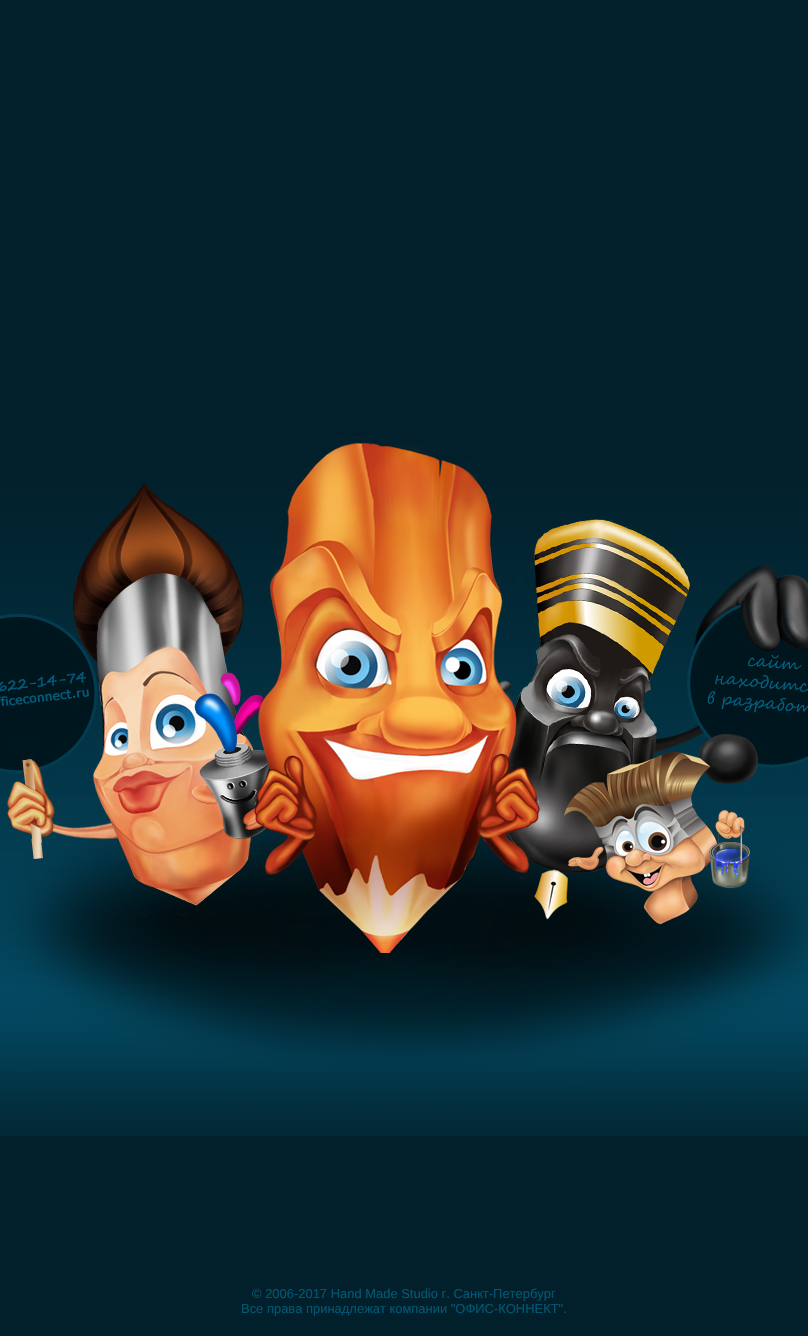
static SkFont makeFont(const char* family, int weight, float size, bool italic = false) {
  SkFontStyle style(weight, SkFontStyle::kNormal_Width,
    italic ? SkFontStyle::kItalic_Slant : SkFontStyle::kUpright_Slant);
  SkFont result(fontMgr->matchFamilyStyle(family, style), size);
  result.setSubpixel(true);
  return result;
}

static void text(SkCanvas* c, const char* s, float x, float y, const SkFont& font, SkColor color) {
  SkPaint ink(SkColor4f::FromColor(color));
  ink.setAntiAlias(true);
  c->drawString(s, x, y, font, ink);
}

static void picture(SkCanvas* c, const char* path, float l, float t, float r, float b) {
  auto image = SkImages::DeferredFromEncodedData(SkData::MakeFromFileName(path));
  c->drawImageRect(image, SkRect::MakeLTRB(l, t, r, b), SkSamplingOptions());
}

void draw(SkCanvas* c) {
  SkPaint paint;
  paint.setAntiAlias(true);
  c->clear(0xff02202b);
  picture(c, "img_01.png", 0, 436, 808, 1136);
  SkFont face1 = makeFont("Liberation Sans", 400, 12.95f);
  text(c, "© 2006-2017 Hand Made Studio г. Санкт-Петербург", 252, 1298, face1, 0xff015773);
  text(c, "Все права принадлежат компании \"ОФИС-КОННЕКТ\".", 241, 1313, face1, 0xff015773);
}
